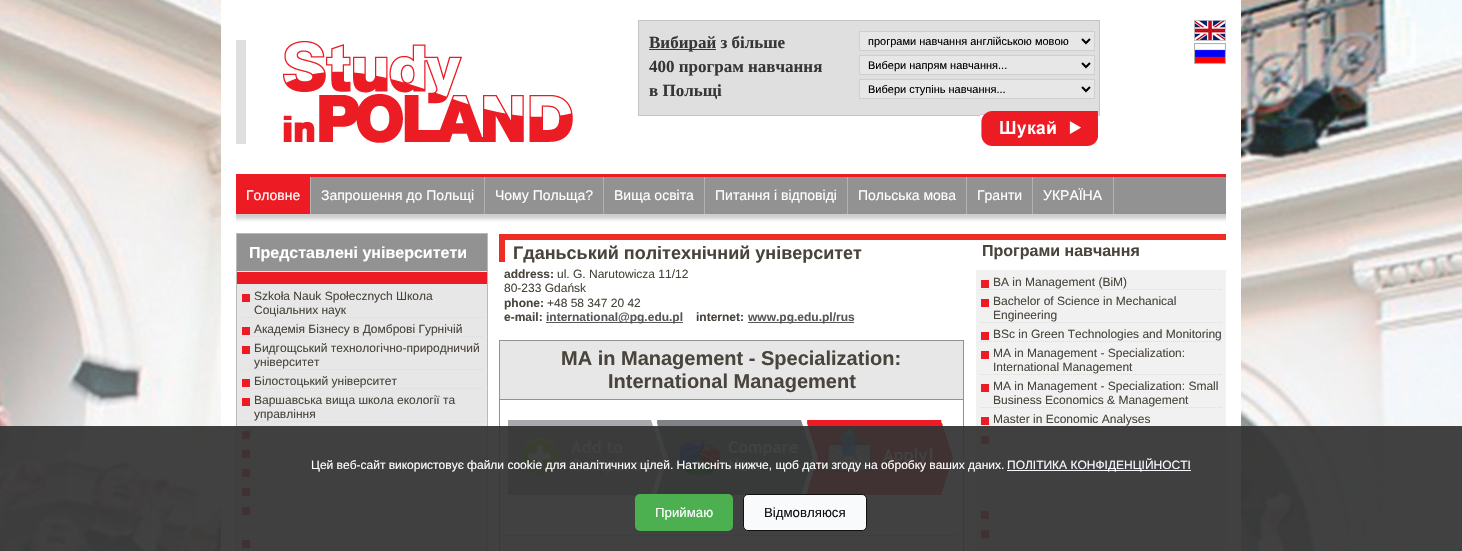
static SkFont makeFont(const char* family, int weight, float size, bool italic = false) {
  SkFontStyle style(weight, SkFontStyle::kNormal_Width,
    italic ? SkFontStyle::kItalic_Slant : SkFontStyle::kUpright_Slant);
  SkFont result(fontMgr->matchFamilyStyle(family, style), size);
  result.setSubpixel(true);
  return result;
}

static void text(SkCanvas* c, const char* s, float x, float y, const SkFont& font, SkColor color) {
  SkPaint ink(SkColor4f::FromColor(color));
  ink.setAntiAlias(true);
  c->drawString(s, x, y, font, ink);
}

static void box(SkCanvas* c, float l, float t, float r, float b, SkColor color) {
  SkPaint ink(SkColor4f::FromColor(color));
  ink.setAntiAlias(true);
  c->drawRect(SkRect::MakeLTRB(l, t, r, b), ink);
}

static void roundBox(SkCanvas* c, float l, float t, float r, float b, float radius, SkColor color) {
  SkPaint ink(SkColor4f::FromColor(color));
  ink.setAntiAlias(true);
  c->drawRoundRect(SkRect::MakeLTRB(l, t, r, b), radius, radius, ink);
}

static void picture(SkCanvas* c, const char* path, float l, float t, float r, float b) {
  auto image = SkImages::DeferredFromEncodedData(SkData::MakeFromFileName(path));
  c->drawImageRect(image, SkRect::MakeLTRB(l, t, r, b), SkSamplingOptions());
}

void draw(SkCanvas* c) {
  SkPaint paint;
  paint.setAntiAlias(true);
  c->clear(0xffffffff);
  picture(c, "img_01.png", 0, 0, 1462, 551);
  box(c, 221, 0, 1241, 551, 0xffffffff);
  box(c, 236, 40, 246, 144, 0xffe0dfdf);
  picture(c, "img_02.png", 283, 41, 573, 143);
  paint.setColor(0xffe0dfdf);
  c->drawRect(SkRect::MakeLTRB(638.5f, 20.5f, 1099.5f, 115.5f), paint);
  paint.setStyle(SkPaint::kStroke_Style);
  paint.setStrokeWidth(1);
  paint.setColor(0xffc6c5c5);
  c->drawRect(SkRect::MakeLTRB(638.5f, 20.5f, 1099.5f, 115.5f), paint);
  box(c, 649, 49, 716, 50, 0xff373636);
  SkFont face1 = makeFont("Liberation Serif", 700, 17);
  text(c, "Вибирай з більше", 649, 48, face1, 0xff373636);
  text(c, "400 програм навчання", 649, 72, face1, 0xff373636);
  text(c, "в Польщі", 649, 96, face1, 0xff373636);
  paint.setStyle(SkPaint::kFill_Style);
  paint.setColor(0xffe8e7e7);
  c->drawRect(SkRect::MakeLTRB(859.5f, 31.5f, 1094.5f, 50.5f), paint);
  paint.setStyle(SkPaint::kStroke_Style);
  paint.setColor(0xffd0cfcf);
  c->drawRect(SkRect::MakeLTRB(859.5f, 31.5f, 1094.5f, 50.5f), paint);
  paint.setStrokeWidth(2);
  paint.setColor(0xff000000);
  c->drawPath(SkPathBuilder().moveTo(1082, 39).lineTo(1086, 43).lineTo(1090, 39).detach(), paint);
  SkFont face2 = makeFont("Liberation Sans", 400, 11);
  text(c, "програми навчання англійською мовою", 868, 45, face2, 0xff000000);
  paint.setStyle(SkPaint::kFill_Style);
  paint.setColor(0xffe8e7e7);
  c->drawRect(SkRect::MakeLTRB(859.5f, 55.5f, 1094.5f, 74.5f), paint);
  paint.setStyle(SkPaint::kStroke_Style);
  paint.setStrokeWidth(1);
  paint.setColor(0xffd0cfcf);
  c->drawRect(SkRect::MakeLTRB(859.5f, 55.5f, 1094.5f, 74.5f), paint);
  paint.setStrokeWidth(2);
  paint.setColor(0xff000000);
  c->drawPath(SkPathBuilder().moveTo(1082, 63).lineTo(1086, 67).lineTo(1090, 63).detach(), paint);
  text(c, "Вибери напрям навчання...", 868, 69, face2, 0xff000000);
  paint.setStyle(SkPaint::kFill_Style);
  paint.setColor(0xffe8e7e7);
  c->drawRect(SkRect::MakeLTRB(859.5f, 79.5f, 1094.5f, 98.5f), paint);
  paint.setStyle(SkPaint::kStroke_Style);
  paint.setStrokeWidth(1);
  paint.setColor(0xffd0cfcf);
  c->drawRect(SkRect::MakeLTRB(859.5f, 79.5f, 1094.5f, 98.5f), paint);
  paint.setStrokeWidth(2);
  paint.setColor(0xff000000);
  c->drawPath(SkPathBuilder().moveTo(1082, 87).lineTo(1086, 91).lineTo(1090, 87).detach(), paint);
  text(c, "Вибери ступінь навчання...", 868, 93, face2, 0xff000000);
  picture(c, "img_03.png", 980, 111, 1098, 146);
  picture(c, "img_04.png", 1194, 20, 1226, 41);
  picture(c, "img_05.png", 1194, 43, 1226, 64);
  picture(c, "img_06.png", 236, 174, 1226, 222);
  box(c, 310, 177, 311, 214, 0xffb2b2b2);
  box(c, 236, 177, 310, 214, 0xffed1c24);
  SkFont face3 = makeFont("Liberation Sans", 400, 14);
  text(c, "Головне", 246, 200, face3, 0xffffffff);
  box(c, 484, 177, 485, 214, 0xffb2b2b2);
  text(c, "Запрошення до Польщі", 321, 200, face3, 0xffffffff);
  box(c, 603, 177, 604, 214, 0xffb2b2b2);
  text(c, "Чому Польща?", 495, 200, face3, 0xffffffff);
  box(c, 704, 177, 705, 214, 0xffb2b2b2);
  text(c, "Вища освіта", 614, 200, face3, 0xffffffff);
  box(c, 847, 177, 848, 214, 0xffb2b2b2);
  text(c, "Питання і відповіді", 715, 200, face3, 0xffffffff);
  box(c, 966, 177, 967, 214, 0xffb2b2b2);
  text(c, "Польська мова", 858, 200, face3, 0xffffffff);
  box(c, 1032, 177, 1033, 214, 0xffb2b2b2);
  text(c, "Гранти", 977, 200, face3, 0xffffffff);
  box(c, 1113, 177, 1114, 214, 0xffb2b2b2);
  text(c, "УКРАЇНА", 1043, 200, face3, 0xffffffff);
  box(c, 237, 271, 487, 551, 0xffe8e7e7);
  paint.setStrokeWidth(1);
  paint.setColor(0xffbbbaba);
  c->drawRect(SkRect::MakeLTRB(236.5f, 233.5f, 487.5f, 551.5f), paint);
  box(c, 237, 234, 487, 271, 0xff939292);
  SkFont face4 = makeFont("Liberation Sans", 700, 16);
  text(c, "Представлені університети", 249, 258, face4, 0xffffffff);
  box(c, 237, 272, 487, 284, 0xffed1c24);
  box(c, 242, 294, 250, 302, 0xffed1c24);
  paint.setColor(0xffdddddd);
  paint.setPathEffect(SkDashPathEffect::Make({{1, 1}}, 0));
  c->drawPath(SkPathBuilder().moveTo(242, 317.5f).lineTo(484, 317.5f).detach(), paint);
  paint.setPathEffect(nullptr);
  SkFont face5 = makeFont("Liberation Sans", 400, 12);
  text(c, "Szkoła Nauk Społecznych Школа", 254, 300, face5, 0xff49453c);
  text(c, "Соціальних наук", 254, 314, face5, 0xff49453c);
  box(c, 242, 327, 250, 335, 0xffed1c24);
  paint.setPathEffect(SkDashPathEffect::Make({{1, 1}}, 0));
  c->drawPath(SkPathBuilder().moveTo(242, 336.5f).lineTo(484, 336.5f).detach(), paint);
  paint.setPathEffect(nullptr);
  text(c, "Академія Бізнесу в Домброві Гурнічій", 254, 333, face5, 0xff49453c);
  box(c, 242, 346, 250, 354, 0xffed1c24);
  paint.setPathEffect(SkDashPathEffect::Make({{1, 1}}, 0));
  c->drawPath(SkPathBuilder().moveTo(242, 369.5f).lineTo(484, 369.5f).detach(), paint);
  paint.setPathEffect(nullptr);
  text(c, "Бидгощський технологічно-природничий", 254, 352, face5, 0xff49453c);
  text(c, "університет", 254, 366, face5, 0xff49453c);
  box(c, 242, 379, 250, 387, 0xffed1c24);
  paint.setPathEffect(SkDashPathEffect::Make({{1, 1}}, 0));
  c->drawPath(SkPathBuilder().moveTo(242, 388.5f).lineTo(484, 388.5f).detach(), paint);
  paint.setPathEffect(nullptr);
  text(c, "Білостоцький університет", 254, 385, face5, 0xff49453c);
  box(c, 242, 398, 250, 406, 0xffed1c24);
  paint.setPathEffect(SkDashPathEffect::Make({{1, 1}}, 0));
  c->drawPath(SkPathBuilder().moveTo(242, 421.5f).lineTo(484, 421.5f).detach(), paint);
  paint.setPathEffect(nullptr);
  text(c, "Варшавська вища школа екології та", 254, 404, face5, 0xff49453c);
  text(c, "управління", 254, 418, face5, 0xff49453c);
  box(c, 242, 431, 250, 439, 0xffed1c24);
  paint.setPathEffect(SkDashPathEffect::Make({{1, 1}}, 0));
  c->drawPath(SkPathBuilder().moveTo(242, 440.5f).lineTo(484, 440.5f).detach(), paint);
  paint.setPathEffect(nullptr);
  box(c, 242, 450, 250, 458, 0xffed1c24);
  paint.setPathEffect(SkDashPathEffect::Make({{1, 1}}, 0));
  c->drawPath(SkPathBuilder().moveTo(242, 459.5f).lineTo(484, 459.5f).detach(), paint);
  paint.setPathEffect(nullptr);
  box(c, 242, 469, 250, 477, 0xffed1c24);
  paint.setPathEffect(SkDashPathEffect::Make({{1, 1}}, 0));
  c->drawPath(SkPathBuilder().moveTo(242, 478.5f).lineTo(484, 478.5f).detach(), paint);
  paint.setPathEffect(nullptr);
  box(c, 242, 488, 250, 496, 0xffed1c24);
  paint.setPathEffect(SkDashPathEffect::Make({{1, 1}}, 0));
  c->drawPath(SkPathBuilder().moveTo(242, 497.5f).lineTo(484, 497.5f).detach(), paint);
  paint.setPathEffect(nullptr);
  box(c, 242, 507, 250, 515, 0xffed1c24);
  paint.setPathEffect(SkDashPathEffect::Make({{1, 1}}, 0));
  c->drawPath(SkPathBuilder().moveTo(242, 530.5f).lineTo(484, 530.5f).detach(), paint);
  paint.setPathEffect(nullptr);
  box(c, 242, 540, 250, 548, 0xffed1c24);
  box(c, 499, 234, 1226, 240, 0xffee2e24);
  box(c, 499, 234, 505, 262, 0xffee2e24);
  SkFont face6 = makeFont("Liberation Sans", 700, 18);
  text(c, "Гданьський політехнічний університет", 513, 259, face6, 0xff49453c);
  SkFont face7 = makeFont("Liberation Sans", 700, 12);
  text(c, "address:", 504, 278, face7, 0xff49453c);
  text(c, "ul. G. Narutowicza 11/12", 557, 278, face5, 0xff49453c);
  text(c, "80-233 Gdańsk", 504, 292, face5, 0xff49453c);
  text(c, "phone:", 504, 307, face7, 0xff49453c);
  text(c, "+48 58 347 20 42", 547, 307, face5, 0xff49453c);
  text(c, "e-mail:", 504, 321, face7, 0xff49453c);
  box(c, 546, 322, 683, 323, 0xff585858);
  text(c, "international@pg.edu.pl", 546, 321, face7, 0xff585858);
  text(c, "internet:", 696, 321, face7, 0xff49453c);
  box(c, 748, 322, 854, 323, 0xff585858);
  text(c, "www.pg.edu.pl/rus", 748, 321, face7, 0xff585858);
  paint.setColor(0xff939292);
  c->drawRect(SkRect::MakeLTRB(499.5f, 340.5f, 963.5f, 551.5f), paint);
  box(c, 500, 341, 963, 399, 0xffe8e7e7);
  box(c, 500, 399, 963, 400, 0xff939292);
  SkFont face8 = makeFont("Liberation Sans", 700, 20);
  text(c, "MA in Management - Specialization:", 561, 365, face8, 0xff49453c);
  text(c, "International Management", 608, 388, face8, 0xff49453c);
  picture(c, "img_07.png", 508, 420, 657, 495);
  picture(c, "img_08.png", 657, 420, 804, 495);
  picture(c, "img_09.png", 804, 420, 953, 495);
  box(c, 505, 517, 958, 536, 0xfff6f6f6);
  paint.setPathEffect(SkDashPathEffect::Make({{1, 1}}, 0));
  c->drawPath(SkPathBuilder().moveTo(505, 535.5f).lineTo(958, 535.5f).detach(), paint);
  paint.setPathEffect(nullptr);
  box(c, 976, 270, 1226, 551, 0xfff1f1f1);
  text(c, "Програми навчання", 982, 256, face4, 0xff49453c);
  box(c, 981, 280, 989, 288, 0xffed1c24);
  paint.setColor(0xffdddddd);
  paint.setPathEffect(SkDashPathEffect::Make({{1, 1}}, 0));
  c->drawPath(SkPathBuilder().moveTo(981, 289.5f).lineTo(1223, 289.5f).detach(), paint);
  paint.setPathEffect(nullptr);
  text(c, "BA in Management (BiM)", 993, 286, face5, 0xff49453c);
  box(c, 981, 299, 989, 307, 0xffed1c24);
  paint.setPathEffect(SkDashPathEffect::Make({{1, 1}}, 0));
  c->drawPath(SkPathBuilder().moveTo(981, 322.5f).lineTo(1223, 322.5f).detach(), paint);
  paint.setPathEffect(nullptr);
  text(c, "Bachelor of Science in Mechanical", 993, 305, face5, 0xff49453c);
  text(c, "Engineering", 993, 319, face5, 0xff49453c);
  box(c, 981, 332, 989, 340, 0xffed1c24);
  paint.setPathEffect(SkDashPathEffect::Make({{1, 1}}, 0));
  c->drawPath(SkPathBuilder().moveTo(981, 341.5f).lineTo(1223, 341.5f).detach(), paint);
  paint.setPathEffect(nullptr);
  text(c, "BSc in Green Technologies and Monitoring", 993, 338, face5, 0xff49453c);
  box(c, 981, 351, 989, 359, 0xffed1c24);
  paint.setPathEffect(SkDashPathEffect::Make({{1, 1}}, 0));
  c->drawPath(SkPathBuilder().moveTo(981, 374.5f).lineTo(1223, 374.5f).detach(), paint);
  paint.setPathEffect(nullptr);
  text(c, "MA in Management - Specialization:", 993, 357, face5, 0xff49453c);
  text(c, "International Management", 993, 371, face5, 0xff49453c);
  box(c, 981, 384, 989, 392, 0xffed1c24);
  paint.setPathEffect(SkDashPathEffect::Make({{1, 1}}, 0));
  c->drawPath(SkPathBuilder().moveTo(981, 407.5f).lineTo(1223, 407.5f).detach(), paint);
  paint.setPathEffect(nullptr);
  text(c, "MA in Management - Specialization: Small", 993, 390, face5, 0xff49453c);
  text(c, "Business Economics & Management", 993, 404, face5, 0xff49453c);
  box(c, 981, 417, 989, 425, 0xffed1c24);
  paint.setPathEffect(SkDashPathEffect::Make({{1, 1}}, 0));
  c->drawPath(SkPathBuilder().moveTo(981, 426.5f).lineTo(1223, 426.5f).detach(), paint);
  paint.setPathEffect(nullptr);
  text(c, "Master in Economic Analyses", 993, 423, face5, 0xff49453c);
  box(c, 981, 436, 989, 444, 0xffed1c24);
  paint.setPathEffect(SkDashPathEffect::Make({{1, 1}}, 0));
  c->drawPath(SkPathBuilder().moveTo(981, 501.5f).lineTo(1223, 501.5f).detach(), paint);
  paint.setPathEffect(nullptr);
  box(c, 981, 511, 989, 519, 0xffed1c24);
  paint.setPathEffect(SkDashPathEffect::Make({{1, 1}}, 0));
  c->drawPath(SkPathBuilder().moveTo(981, 520.5f).lineTo(1223, 520.5f).detach(), paint);
  paint.setPathEffect(nullptr);
  box(c, 981, 530, 989, 538, 0xffed1c24);
  box(c, 0, 426, 1462, 551, 0xed333333);
  text(c, "Цей веб-сайт використовує файли cookie для аналітичних цілей. Натисніть нижче, щоб дати згоду на обробку ваших даних.", 311, 469, face5, 0xffffffff);
  box(c, 1007, 470, 1191, 471, 0xfff8f8ff);
  text(c, "ПОЛІТИКА КОНФІДЕНЦІЙНОСТІ", 1007, 469, face5, 0xfff8f8ff);
  roundBox(c, 635, 494, 733, 531, 5, 0xff4caf50);
  SkFont face9 = makeFont("Liberation Sans", 400, 13.25f);
  text(c, "Приймаю", 655, 517, face9, 0xffffffff);
  paint.setStyle(SkPaint::kFill_Style);
  paint.setColor(0xfff8fafc);
  c->drawRoundRect(SkRect::MakeLTRB(743.5f, 494.5f, 866.5f, 530.5f), 4.5f, 4.5f, paint);
  paint.setStyle(SkPaint::kStroke_Style);
  paint.setColor(0xff111111);
  c->drawRoundRect(SkRect::MakeLTRB(743.5f, 494.5f, 866.5f, 530.5f), 4.5f, 4.5f, paint);
  text(c, "Відмовляюся", 764, 517, face9, 0xff111111);
}
